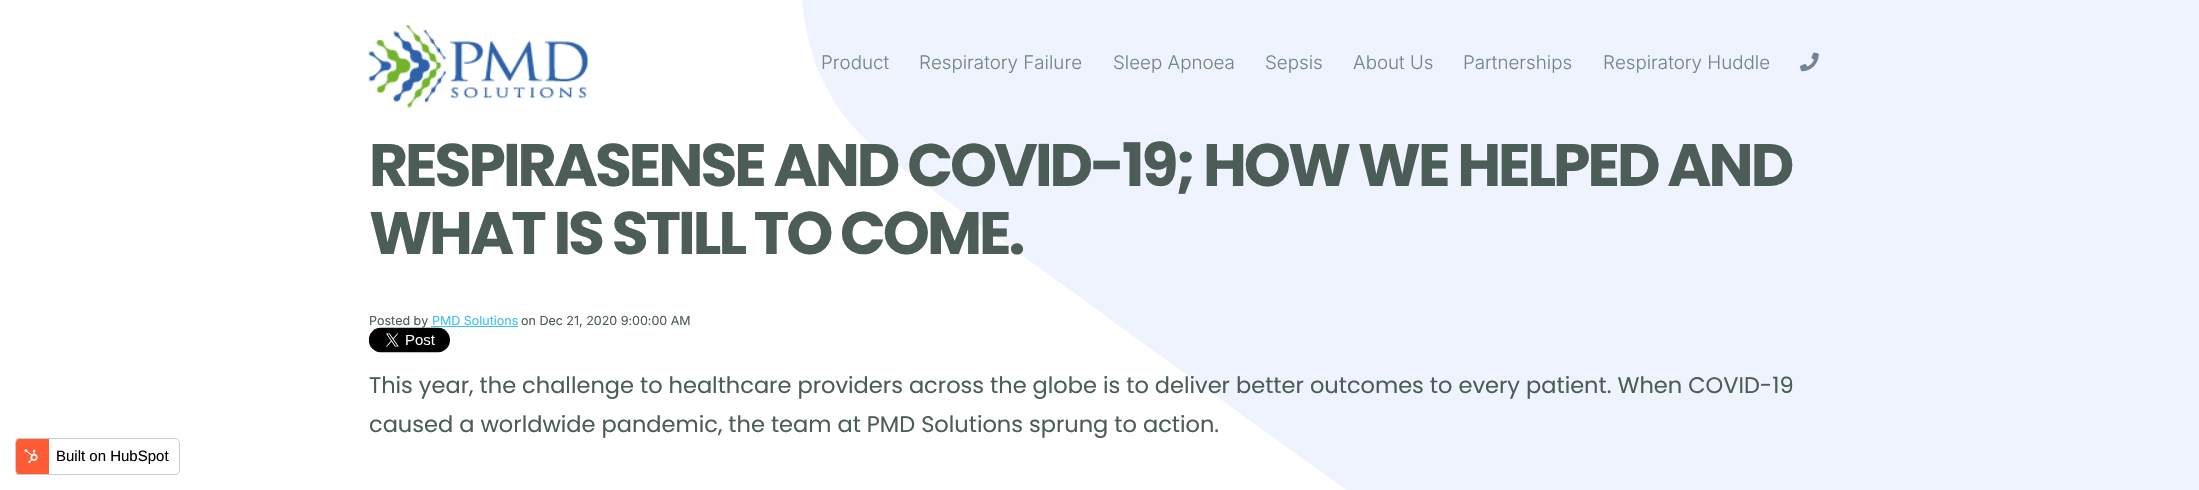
static SkFont makeFont(const char* family, int weight, float size, bool italic = false) {
  SkFontStyle style(weight, SkFontStyle::kNormal_Width,
    italic ? SkFontStyle::kItalic_Slant : SkFontStyle::kUpright_Slant);
  SkFont result(fontMgr->matchFamilyStyle(family, style), size);
  result.setSubpixel(true);
  return result;
}

static void text(SkCanvas* c, const char* s, float x, float y, const SkFont& font, SkColor color) {
  SkPaint ink(SkColor4f::FromColor(color));
  ink.setAntiAlias(true);
  c->drawString(s, x, y, font, ink);
}

static void spacedText(SkCanvas* c, const char* s, float x, float y, const SkFont& font, const SkPaint& ink, float letter, float word) {
  std::vector<SkGlyphID> glyphs(font.countText(s, strlen(s), SkTextEncoding::kUTF8));
  std::vector<float> xs(glyphs.size());
  font.textToGlyphs(s, strlen(s), SkTextEncoding::kUTF8, glyphs);
  font.getXPos(glyphs, xs, x);
  float extra = 0;
  for (size_t i = 0; i < glyphs.size(); i++) {
    xs[i] += extra;
    extra += letter + word * (glyphs[i] == font.unicharToGlyph(' '));
  }
  c->drawTextBlob(SkTextBlob::MakeFromPosHGlyphs(glyphs, xs, y, font), 0, 0, ink);
}

static void box(SkCanvas* c, float l, float t, float r, float b, SkColor color) {
  SkPaint ink(SkColor4f::FromColor(color));
  ink.setAntiAlias(true);
  c->drawRect(SkRect::MakeLTRB(l, t, r, b), ink);
}

static void picture(SkCanvas* c, const char* path, float l, float t, float r, float b) {
  auto image = SkImages::DeferredFromEncodedData(SkData::MakeFromFileName(path));
  c->drawImageRect(image, SkRect::MakeLTRB(l, t, r, b), SkSamplingOptions());
}

void draw(SkCanvas* c) {
  SkPaint paint;
  paint.setAntiAlias(true);
  c->clear(0xffffffff);
  paint.setColor(0xffeff3fe);
  c->drawPath(SkPathBuilder().moveTo(803, 7).cubicTo(809, 65, 832, 111, 876, 149).lineTo(1176, 367).lineTo(2199, 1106).lineTo(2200, 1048).lineTo(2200, 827).lineTo(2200, 0).lineTo(802, 0).close().detach(), paint);
  picture(c, "img_01.png", 368, 25, 588, 108);
  SkFont face1 = makeFont("Inter", 300, 18.75f);
  text(c, "Product", 821, 69, face1, 0xff748494);
  text(c, "Respiratory Failure", 919, 69, face1, 0xff748494);
  text(c, "Sleep Apnoea", 1113, 69, face1, 0xff748494);
  text(c, "Sepsis", 1265, 69, face1, 0xff748494);
  text(c, "About Us", 1353, 69, face1, 0xff748494);
  text(c, "Partnerships", 1463, 69, face1, 0xff748494);
  text(c, "Respiratory Huddle", 1603, 69, face1, 0xff748494);
  picture(c, "img_02.png", 1800, 52, 1819, 72);
  SkFont face2 = makeFont("Poppins", 700, 60);
  paint.setColor(0xff4c5c57);
  spacedText(c, "RESPIRASENSE AND COVID-19; HOW WE HELPED AND", 369, 186, face2, paint, -3, 0);
  spacedText(c, "WHAT IS STILL TO COME.", 369, 254, face2, paint, -3, 0);
  SkFont face3 = makeFont("Inter", 400, 12.5f);
  text(c, "Posted by", 369, 325, face3, 0xff4c5c57);
  text(c, "PMD Solutions", 432, 325, face3, 0xff3fc0f0);
  box(c, 431, 326, 518, 327, 0xff3fc0f0);
  text(c, "on Dec 21, 2020 9:00:00 AM", 521, 325, face3, 0xff4c5c57);
  picture(c, "img_03.png", 368, 327, 450, 353);
  SkFont face4 = makeFont("Poppins", 400, 22.5f);
  text(c, "This year, the challenge to healthcare providers across the globe is to deliver better outcomes to every patient. When COVID-19", 369, 393, face4, 0xff4c5c57);
  text(c, "caused a worldwide pandemic, the team at PMD Solutions sprung to action.", 369, 432, face4, 0xff4c5c57);
  c->save();
  c->clipPath(SkPathBuilder().moveTo(20, 438).lineTo(175, 438).cubicTo(178, 438, 180, 440, 180, 443).lineTo(180, 470).cubicTo(180, 473, 178, 475, 175, 475).lineTo(20, 475).cubicTo(17, 475, 15, 473, 15, 470).lineTo(15, 443).cubicTo(15, 440, 17, 438, 20, 438).close().detach(), true);
  box(c, 16, 438, 49, 475, 0xffff5c35);
  c->restore();
  paint.setStyle(SkPaint::kStroke_Style);
  paint.setStrokeWidth(1);
  paint.setColor(0xffcccccc);
  c->drawRoundRect(SkRect::MakeLTRB(15.5f, 438.5f, 179.5f, 474.5f), 4.5f, 4.5f, paint);
  picture(c, "img_04.png", 24, 449, 38, 464);
  SkFont face5 = makeFont("Liberation Sans", 400, 15);
  text(c, "Built on HubSpot", 56, 461, face5, 0xff000000);
}
